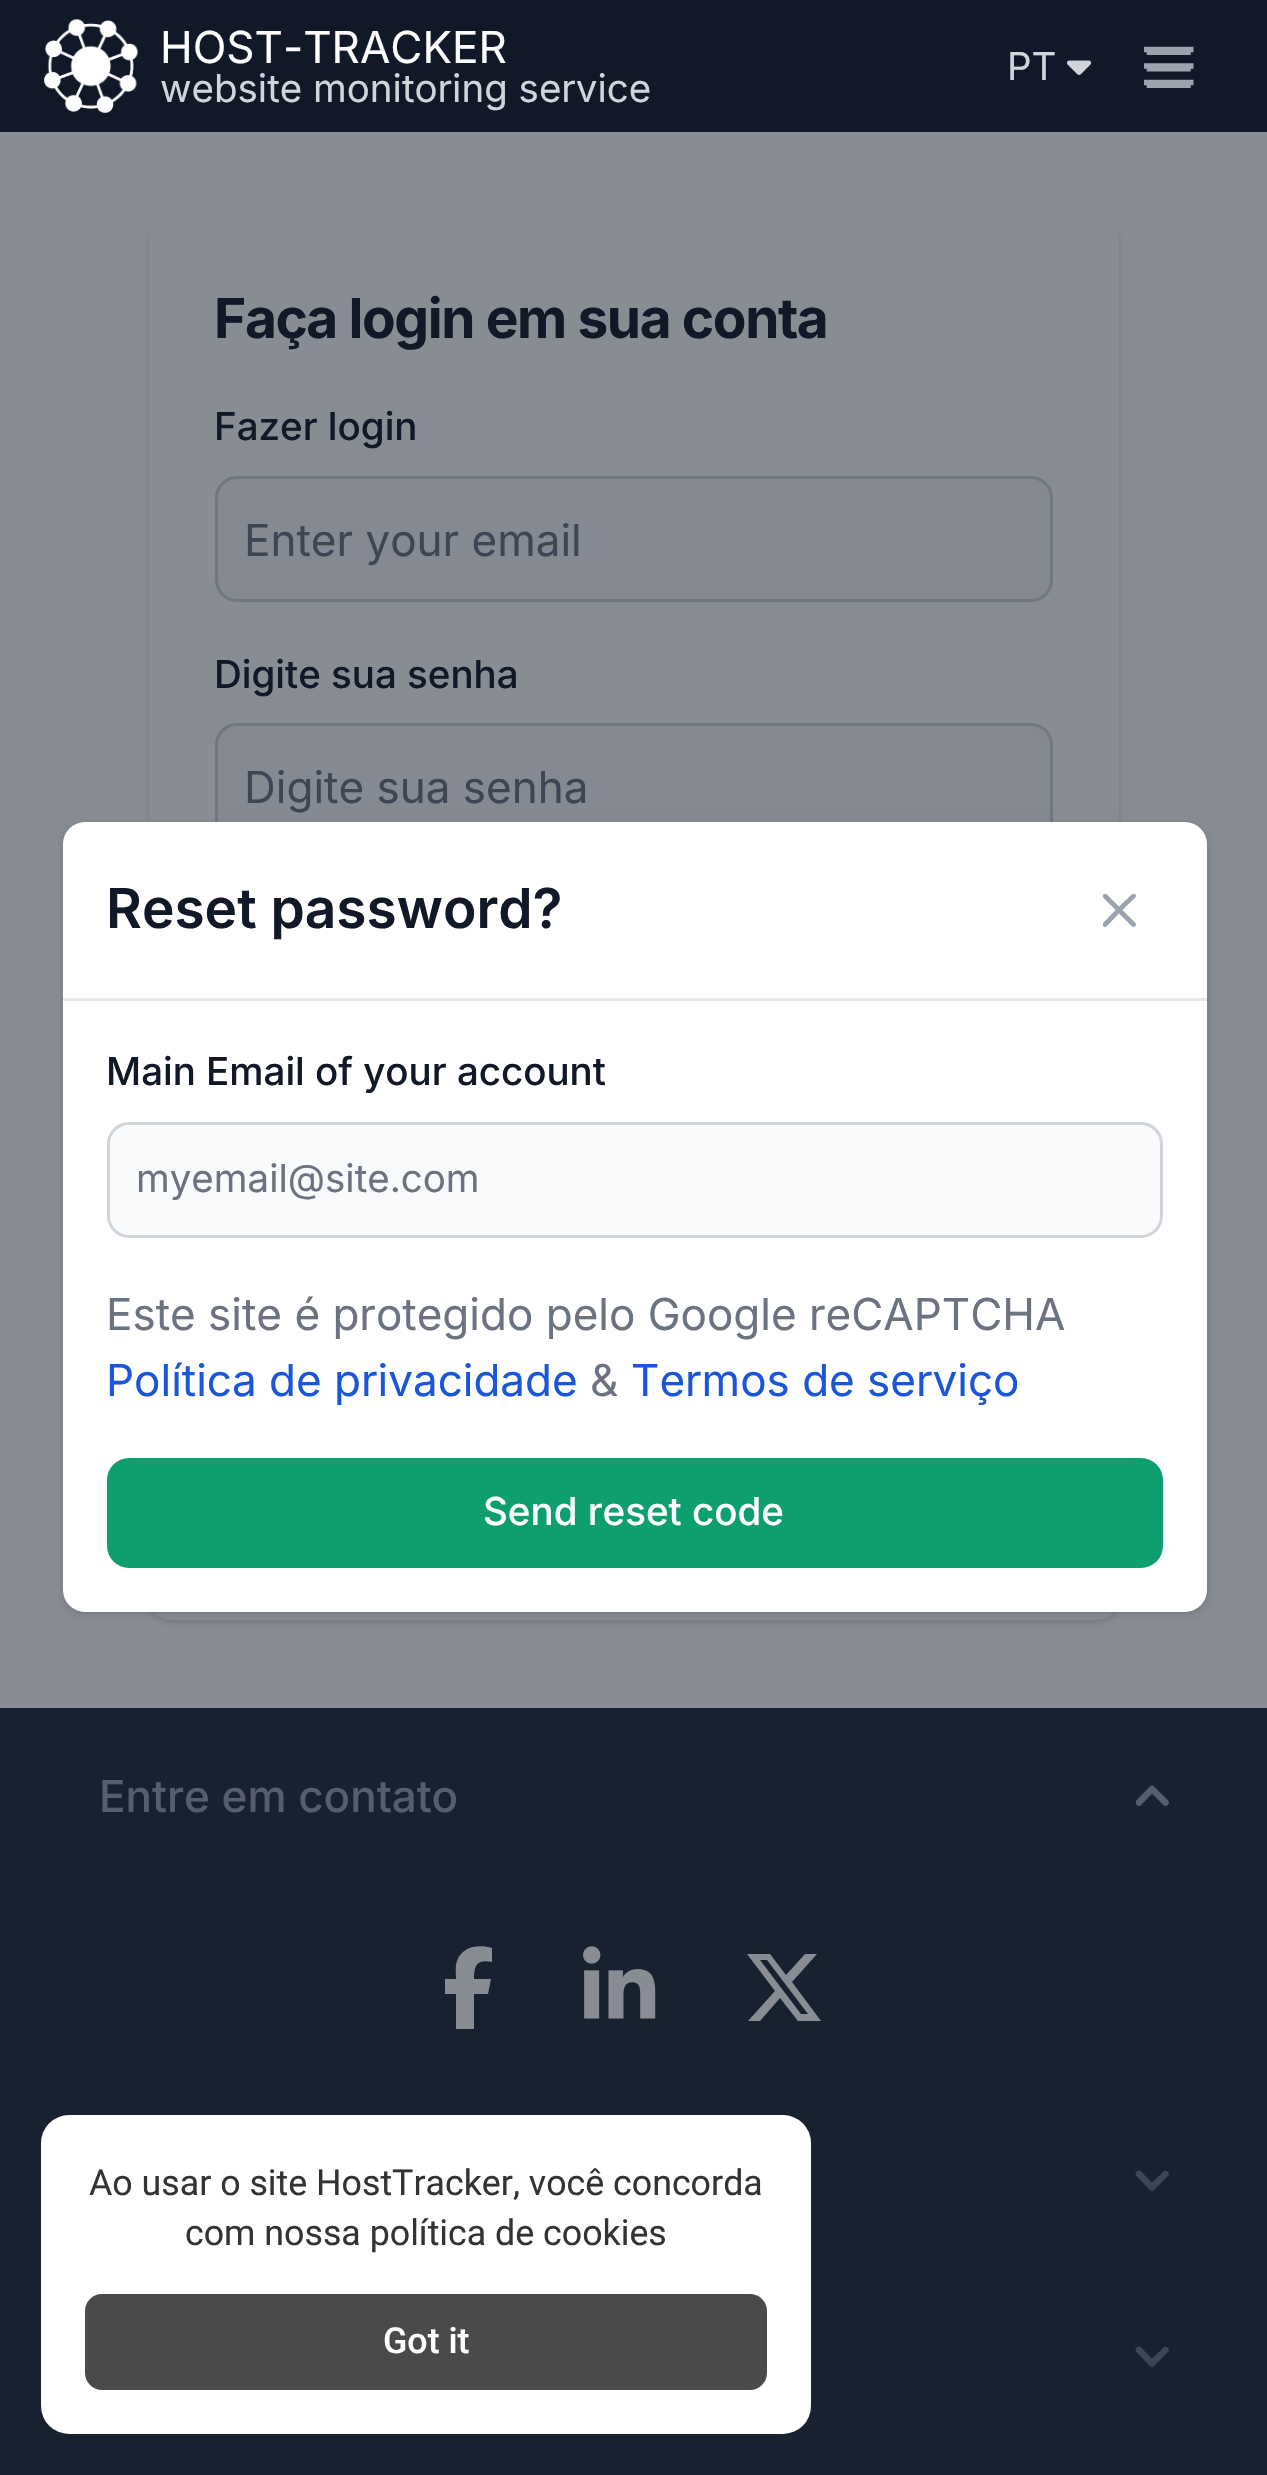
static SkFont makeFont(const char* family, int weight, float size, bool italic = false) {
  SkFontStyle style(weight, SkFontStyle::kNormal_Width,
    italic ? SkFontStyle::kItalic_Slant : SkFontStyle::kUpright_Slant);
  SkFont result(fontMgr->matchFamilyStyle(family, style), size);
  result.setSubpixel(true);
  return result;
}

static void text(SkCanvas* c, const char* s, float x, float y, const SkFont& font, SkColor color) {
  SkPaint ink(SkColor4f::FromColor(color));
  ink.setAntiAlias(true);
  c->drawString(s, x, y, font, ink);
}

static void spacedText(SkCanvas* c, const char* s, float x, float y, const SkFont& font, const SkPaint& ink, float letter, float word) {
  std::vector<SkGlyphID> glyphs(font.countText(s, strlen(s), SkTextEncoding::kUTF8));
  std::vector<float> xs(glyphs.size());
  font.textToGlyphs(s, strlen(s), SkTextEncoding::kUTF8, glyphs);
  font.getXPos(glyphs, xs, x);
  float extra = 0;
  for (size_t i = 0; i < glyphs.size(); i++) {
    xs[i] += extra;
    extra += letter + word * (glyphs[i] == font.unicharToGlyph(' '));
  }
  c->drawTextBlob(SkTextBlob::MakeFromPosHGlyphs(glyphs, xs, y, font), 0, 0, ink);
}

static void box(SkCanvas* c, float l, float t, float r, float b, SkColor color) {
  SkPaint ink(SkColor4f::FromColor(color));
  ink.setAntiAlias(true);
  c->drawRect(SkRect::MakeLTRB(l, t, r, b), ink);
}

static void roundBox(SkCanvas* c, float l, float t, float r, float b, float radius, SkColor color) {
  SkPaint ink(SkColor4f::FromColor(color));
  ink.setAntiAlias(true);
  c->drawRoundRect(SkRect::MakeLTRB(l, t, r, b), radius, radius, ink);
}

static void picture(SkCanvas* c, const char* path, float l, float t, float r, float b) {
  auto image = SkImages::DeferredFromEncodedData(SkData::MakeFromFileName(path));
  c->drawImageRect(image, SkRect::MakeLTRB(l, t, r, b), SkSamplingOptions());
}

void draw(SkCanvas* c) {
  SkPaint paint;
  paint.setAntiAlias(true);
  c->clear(0xff888c93);
  box(c, 0, 0, 1267, 132, 0xff111827);
  picture(c, "img_01.png", 44, 19, 138, 113);
  SkFont face1 = makeFont("Inter", 400, 44);
  text(c, "HOST-TRACKER", 160, 63, face1, 0xffffffff);
  SkFont face2 = makeFont("Inter", 400, 38.5f);
  text(c, "website monitoring service", 160, 102, face2, 0xffd1d5db);
  text(c, "PT", 1007, 80, face2, 0xffd1d5db);
  picture(c, "img_02.png", 1067, 60, 1092, 75);
  picture(c, "img_03.png", 1144, 46, 1194, 88);
  paint.setColor(0x1a090c14);
  paint.setMaskFilter(SkMaskFilter::MakeBlur(kNormal_SkBlurStyle, 3));
  c->drawRoundRect(SkRect::MakeLTRB(151, 226, 1117, 1620), 19, 19, paint);
  paint.setMaskFilter(nullptr);
  paint.setMaskFilter(SkMaskFilter::MakeBlur(kNormal_SkBlurStyle, 4));
  c->drawRoundRect(SkRect::MakeLTRB(149, 223, 1119, 1623), 22, 22, paint);
  paint.setMaskFilter(nullptr);
  roundBox(c, 149, 220, 1119, 1620, 22, 0xff888c93);
  SkFont face3 = makeFont("Inter", 700, 55);
  paint.setColor(0xff111827);
  spacedText(c, "Faça login em sua conta", 214, 338, face3, paint, -1.4f, 0);
  SkFont face4 = makeFont("Inter", 500, 38.5f);
  text(c, "Fazer login", 214, 440, face4, 0xff111827);
  paint.setColor(0xff858991);
  c->drawRoundRect(SkRect::MakeLTRB(216.5f, 477.5f, 1051.5f, 600.5f), 20.5f, 20.5f, paint);
  paint.setStyle(SkPaint::kStroke_Style);
  paint.setStrokeWidth(3);
  paint.setColor(0xff717781);
  c->drawRoundRect(SkRect::MakeLTRB(216.5f, 477.5f, 1051.5f, 600.5f), 20.5f, 20.5f, paint);
  text(c, "Enter your email", 244, 556, face1, 0xff3e4554);
  text(c, "Digite sua senha", 214, 688, face4, 0xff111827);
  paint.setStyle(SkPaint::kFill_Style);
  paint.setColor(0xff858991);
  c->drawRoundRect(SkRect::MakeLTRB(216.5f, 724.5f, 1051.5f, 848.5f), 20.5f, 20.5f, paint);
  paint.setStyle(SkPaint::kStroke_Style);
  paint.setColor(0xff717781);
  c->drawRoundRect(SkRect::MakeLTRB(216.5f, 724.5f, 1051.5f, 848.5f), 20.5f, 20.5f, paint);
  text(c, "Digite sua senha", 244, 803, face1, 0xff3e4554);
  paint.setStyle(SkPaint::kFill_Style);
  paint.setColor(0x1a000000);
  paint.setMaskFilter(SkMaskFilter::MakeBlur(kNormal_SkBlurStyle, 3));
  c->drawRoundRect(SkRect::MakeLTRB(66, 828, 1205, 1612), 19, 19, paint);
  paint.setMaskFilter(nullptr);
  paint.setMaskFilter(SkMaskFilter::MakeBlur(kNormal_SkBlurStyle, 4));
  c->drawRoundRect(SkRect::MakeLTRB(63, 825, 1207, 1614), 22, 22, paint);
  paint.setMaskFilter(nullptr);
  roundBox(c, 63, 822, 1207, 1612, 22, 0xffffffff);
  box(c, 63, 998, 1207, 1001, 0xffe5e7eb);
  SkFont face5 = makeFont("Inter", 600, 55);
  text(c, "Reset password?", 106, 928, face5, 0xff111827);
  c->save();
  c->clipRect(SkRect::MakeLTRB(1103, 894, 1136, 927));
  paint.setStyle(SkPaint::kStroke_Style);
  paint.setStrokeWidth(4.7f);
  paint.setStrokeCap(SkPaint::kRound_Cap);
  paint.setStrokeJoin(SkPaint::kRound_Join);
  paint.setColor(0xff9ca3af);
  c->drawPath(SkPathBuilder().moveTo(1105, 896).lineTo(1119, 910).moveTo(1119, 910).lineTo(1133.5f, 924.5f).moveTo(1119, 910).lineTo(1133.5f, 896).moveTo(1119, 910).lineTo(1105, 924.5f).detach(), paint);
  c->restore();
  text(c, "Main Email of your account", 106, 1085, face4, 0xff111827);
  paint.setStyle(SkPaint::kFill_Style);
  paint.setColor(0xfff9fafb);
  c->drawRoundRect(SkRect::MakeLTRB(108.5f, 1123.5f, 1161.5f, 1236.5f), 20.5f, 20.5f, paint);
  paint.setStyle(SkPaint::kStroke_Style);
  paint.setStrokeWidth(3);
  paint.setStrokeCap(SkPaint::kButt_Cap);
  paint.setStrokeJoin(SkPaint::kMiter_Join);
  paint.setColor(0xffd1d5db);
  c->drawRoundRect(SkRect::MakeLTRB(108.5f, 1123.5f, 1161.5f, 1236.5f), 20.5f, 20.5f, paint);
  text(c, "myemail@site.com", 136, 1192, face2, 0xff6b7280);
  text(c, "Este site é protegido pelo Google reCAPTCHA", 106, 1330, face1, 0xff6b7280);
  text(c, "Política de privacidade", 106, 1396, face1, 0xff1a56db);
  text(c, "&", 590, 1396, face1, 0xff6b7280);
  text(c, "Termos de serviço", 631, 1396, face1, 0xff1a56db);
  roundBox(c, 107, 1458, 1163, 1568, 22, 0xff0e9f6e);
  text(c, "Send reset code", 483, 1525, face4, 0xffffffff);
  box(c, 0, 1708, 1267, 2475, 0xff18212f);
  SkFont face6 = makeFont("Inter", 500, 44);
  text(c, "Entre em contato", 99, 1812, face6, 0xff575e6b);
  c->save();
  c->clipRect(SkRect::MakeLTRB(1136, 1779, 1169, 1812));
  paint.setStrokeWidth(6.6f);
  paint.setStrokeCap(SkPaint::kRound_Cap);
  paint.setStrokeJoin(SkPaint::kRound_Join);
  paint.setColor(0xff575e6b);
  c->drawPath(SkPathBuilder().moveTo(1165.5f, 1802.5f).lineTo(1152, 1789).lineTo(1139, 1802.5f).detach(), paint);
  c->restore();
  paint.setStyle(SkPaint::kFill_Style);
  paint.setColor(0xff888c93);
  c->drawPath(SkPathBuilder().moveTo(456, 1994).lineTo(456, 2029).lineTo(456, 1994).lineTo(456, 2029).lineTo(474, 2029).lineTo(474, 1994).lineTo(488, 1994).lineTo(491, 1979).lineTo(474, 1979).cubicTo(474, 1965, 477, 1959, 492, 1962).lineTo(492, 1948).cubicTo(479, 1944, 462, 1946, 457, 1961).cubicTo(455, 1966, 456, 1973, 456, 1979).lineTo(445, 1979).lineTo(445, 1994).close().detach(), paint);
  picture(c, "img_04.png", 583, 1946, 656, 2019);
  c->drawPath(SkPathBuilder().moveTo(805, 1954).lineTo(817, 1954).lineTo(805, 1954).lineTo(817, 1954).lineTo(792, 1982).lineTo(821, 2021).lineTo(798, 2021).lineTo(780, 1998).lineTo(760, 2021).lineTo(748, 2021).lineTo(775, 1991).lineTo(747, 1954).lineTo(770, 1954).lineTo(786, 1975).close().moveTo(801, 2014).lineTo(808, 2014).lineTo(801, 2014).lineTo(808, 2014).lineTo(767, 1960).lineTo(760, 1960).close().detach(), paint);
  paint.setStyle(SkPaint::kStroke_Style);
  paint.setColor(0xff3e4554);
  c->drawPath(SkPathBuilder().moveTo(1139, 2174).lineTo(1152, 2187.5f).lineTo(1165.5f, 2174).detach(), paint);
  c->drawPath(SkPathBuilder().moveTo(1139, 2350).lineTo(1152, 2363.5f).lineTo(1165.5f, 2350).detach(), paint);
  roundBox(c, 41, 2115, 811, 2434, 28, 0xffffffff);
  SkFont face7 = makeFont("Roboto", 400, 35.75f);
  text(c, "Ao usar o site HostTracker, você concorda", 89, 2195, face7, 0xff333333);
  text(c, "com nossa política de cookies", 185, 2245, face7, 0xff333333);
  roundBox(c, 85, 2294, 767, 2390, 17, 0xff4a4a4a);
  SkFont face8 = makeFont("Roboto", 500, 35.75f);
  text(c, "Got it", 383, 2353, face8, 0xffffffff);
}
